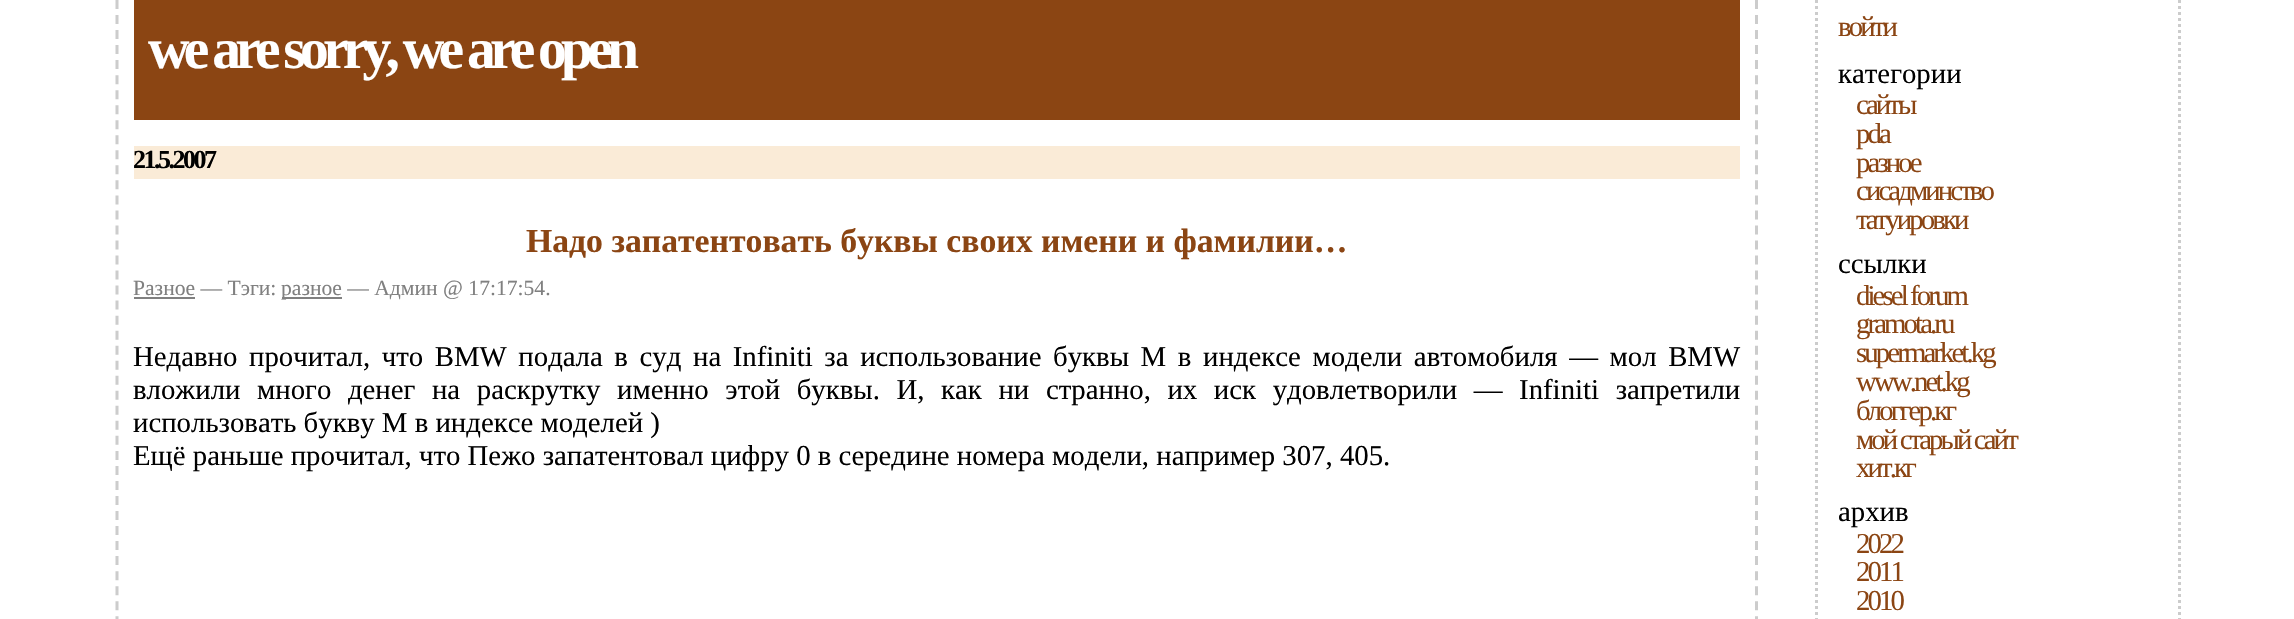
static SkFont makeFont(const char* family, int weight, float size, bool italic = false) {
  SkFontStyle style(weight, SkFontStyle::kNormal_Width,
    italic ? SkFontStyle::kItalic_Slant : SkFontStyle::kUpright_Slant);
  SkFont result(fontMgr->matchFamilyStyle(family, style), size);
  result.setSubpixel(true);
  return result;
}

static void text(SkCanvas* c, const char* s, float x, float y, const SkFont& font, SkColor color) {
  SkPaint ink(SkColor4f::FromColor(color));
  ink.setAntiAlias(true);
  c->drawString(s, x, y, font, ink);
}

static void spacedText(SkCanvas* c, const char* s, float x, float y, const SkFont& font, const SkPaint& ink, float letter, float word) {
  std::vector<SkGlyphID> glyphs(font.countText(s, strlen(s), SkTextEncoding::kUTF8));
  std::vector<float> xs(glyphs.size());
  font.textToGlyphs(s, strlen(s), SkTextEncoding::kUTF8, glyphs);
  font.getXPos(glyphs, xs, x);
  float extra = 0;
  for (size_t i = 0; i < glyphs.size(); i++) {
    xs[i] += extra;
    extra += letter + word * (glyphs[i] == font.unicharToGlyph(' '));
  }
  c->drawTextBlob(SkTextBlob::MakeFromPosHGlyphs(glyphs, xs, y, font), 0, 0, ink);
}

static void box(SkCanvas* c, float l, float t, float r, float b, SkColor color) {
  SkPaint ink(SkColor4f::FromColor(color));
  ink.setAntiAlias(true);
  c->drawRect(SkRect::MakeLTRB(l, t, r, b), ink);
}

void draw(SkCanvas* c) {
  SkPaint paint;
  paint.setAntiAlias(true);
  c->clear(0xffffffff);
  paint.setStyle(SkPaint::kStroke_Style);
  paint.setStrokeWidth(3);
  paint.setColor(0xffcccccc);
  paint.setPathEffect(SkDashPathEffect::Make({{9, 6.03f}}, 0));
  c->drawPath(SkPathBuilder().moveTo(1756.5f, 0).lineTo(1756.5f, 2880).detach(), paint);
  paint.setPathEffect(nullptr);
  paint.setPathEffect(SkDashPathEffect::Make({{9, 6.03f}}, 0));
  c->drawPath(SkPathBuilder().moveTo(117, 0).lineTo(117, 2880).detach(), paint);
  paint.setPathEffect(nullptr);
  box(c, 134, 0, 1740, 120, 0xff8b4513);
  SkFont face1 = makeFont("Liberation Serif", 700, 57.5f);
  paint.setStyle(SkPaint::kFill_Style);
  paint.setColor(0xffffffff);
  spacedText(c, "we are sorry, we are open", 148, 68, face1, paint, -5.75f, 0);
  box(c, 134, 146, 1740, 179, 0xfffaebd7);
  SkFont face2 = makeFont("Liberation Serif", 700, 26);
  paint.setColor(0xff000000);
  spacedText(c, "21.5.2007", 133, 168, face2, paint, -2.5f, 0);
  SkFont face3 = makeFont("Liberation Serif", 700, 33.7f);
  text(c, "Надо запатентовать буквы своих имени и фамилии…", 526, 252, face3, 0xff8b4513);
  SkFont face4 = makeFont("Liberation Serif", 400, 21.6f);
  text(c, "Разное — Тэги:", 133, 295, face4, 0xff808080);
  box(c, 134, 297, 195, 299, 0xff808080);
  box(c, 282, 297, 342, 299, 0xff808080);
  text(c, "разное — Админ @ 17:17:54.", 281, 295, face4, 0xff808080);
  SkFont face5 = makeFont("Liberation Serif", 400, 28.8f);
  spacedText(c, "Недавно прочитал, что BMW подала в суд на Infiniti за использование буквы M в индексе модели автомобиля — мол BMW", 133, 366, face5, paint, 0, 4.4f);
  spacedText(c, "вложили много денег на раскрутку именно этой буквы. И, как ни странно, их иск удовлетворили — Infiniti запретили", 133, 399, face5, paint, 0, 9.4f);
  text(c, "использовать букву M в индексе моделей )", 133, 432, face5, 0xff000000);
  text(c, "Ещё раньше прочитал, что Пежо запатентовал цифру 0 в середине номера модели, например 307, 405.", 133, 465, face5, 0xff000000);
  paint.setStyle(SkPaint::kStroke_Style);
  paint.setColor(0xffcccccc);
  paint.setPathEffect(SkDashPathEffect::Make({{3, 3}}, 0));
  c->drawPath(SkPathBuilder().moveTo(2179.5f, 0).lineTo(2179.5f, 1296).detach(), paint);
  paint.setPathEffect(nullptr);
  paint.setPathEffect(SkDashPathEffect::Make({{3, 3}}, 0));
  c->drawPath(SkPathBuilder().moveTo(1816.5f, 0).lineTo(1816.5f, 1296).detach(), paint);
  paint.setPathEffect(nullptr);
  paint.setStyle(SkPaint::kFill_Style);
  paint.setColor(0xff8b4513);
  spacedText(c, "войти", 1838, 36, face5, paint, -2.9f, 0);
  text(c, "категории", 1838, 83, face5, 0xff000000);
  spacedText(c, "cайты", 1856, 114, face5, paint, -2.9f, 0);
  spacedText(c, "pda", 1856, 143, face5, paint, -2.9f, 0);
  spacedText(c, "разное", 1856, 172, face5, paint, -2.9f, 0);
  spacedText(c, "сисадминство", 1856, 200, face5, paint, -2.9f, 0);
  spacedText(c, "татуировки", 1856, 229, face5, paint, -2.9f, 0);
  text(c, "ссылки", 1838, 273, face5, 0xff000000);
  spacedText(c, "diesel forum", 1856, 305, face5, paint, -2.9f, 0);
  spacedText(c, "gramota.ru", 1856, 333, face5, paint, -2.9f, 0);
  spacedText(c, "supermarket.kg", 1856, 362, face5, paint, -2.9f, 0);
  spacedText(c, "www.net.kg", 1856, 391, face5, paint, -2.9f, 0);
  spacedText(c, "блоггер.кг", 1856, 420, face5, paint, -2.9f, 0);
  spacedText(c, "мой старый сайт", 1856, 449, face5, paint, -2.9f, 0);
  spacedText(c, "хит.кг", 1856, 477, face5, paint, -2.9f, 0);
  text(c, "архив", 1838, 521, face5, 0xff000000);
  spacedText(c, "2022", 1856, 553, face5, paint, -2.9f, 0);
  spacedText(c, "2011", 1856, 581, face5, paint, -2.9f, 0);
  spacedText(c, "2010", 1856, 610, face5, paint, -2.9f, 0);
}
